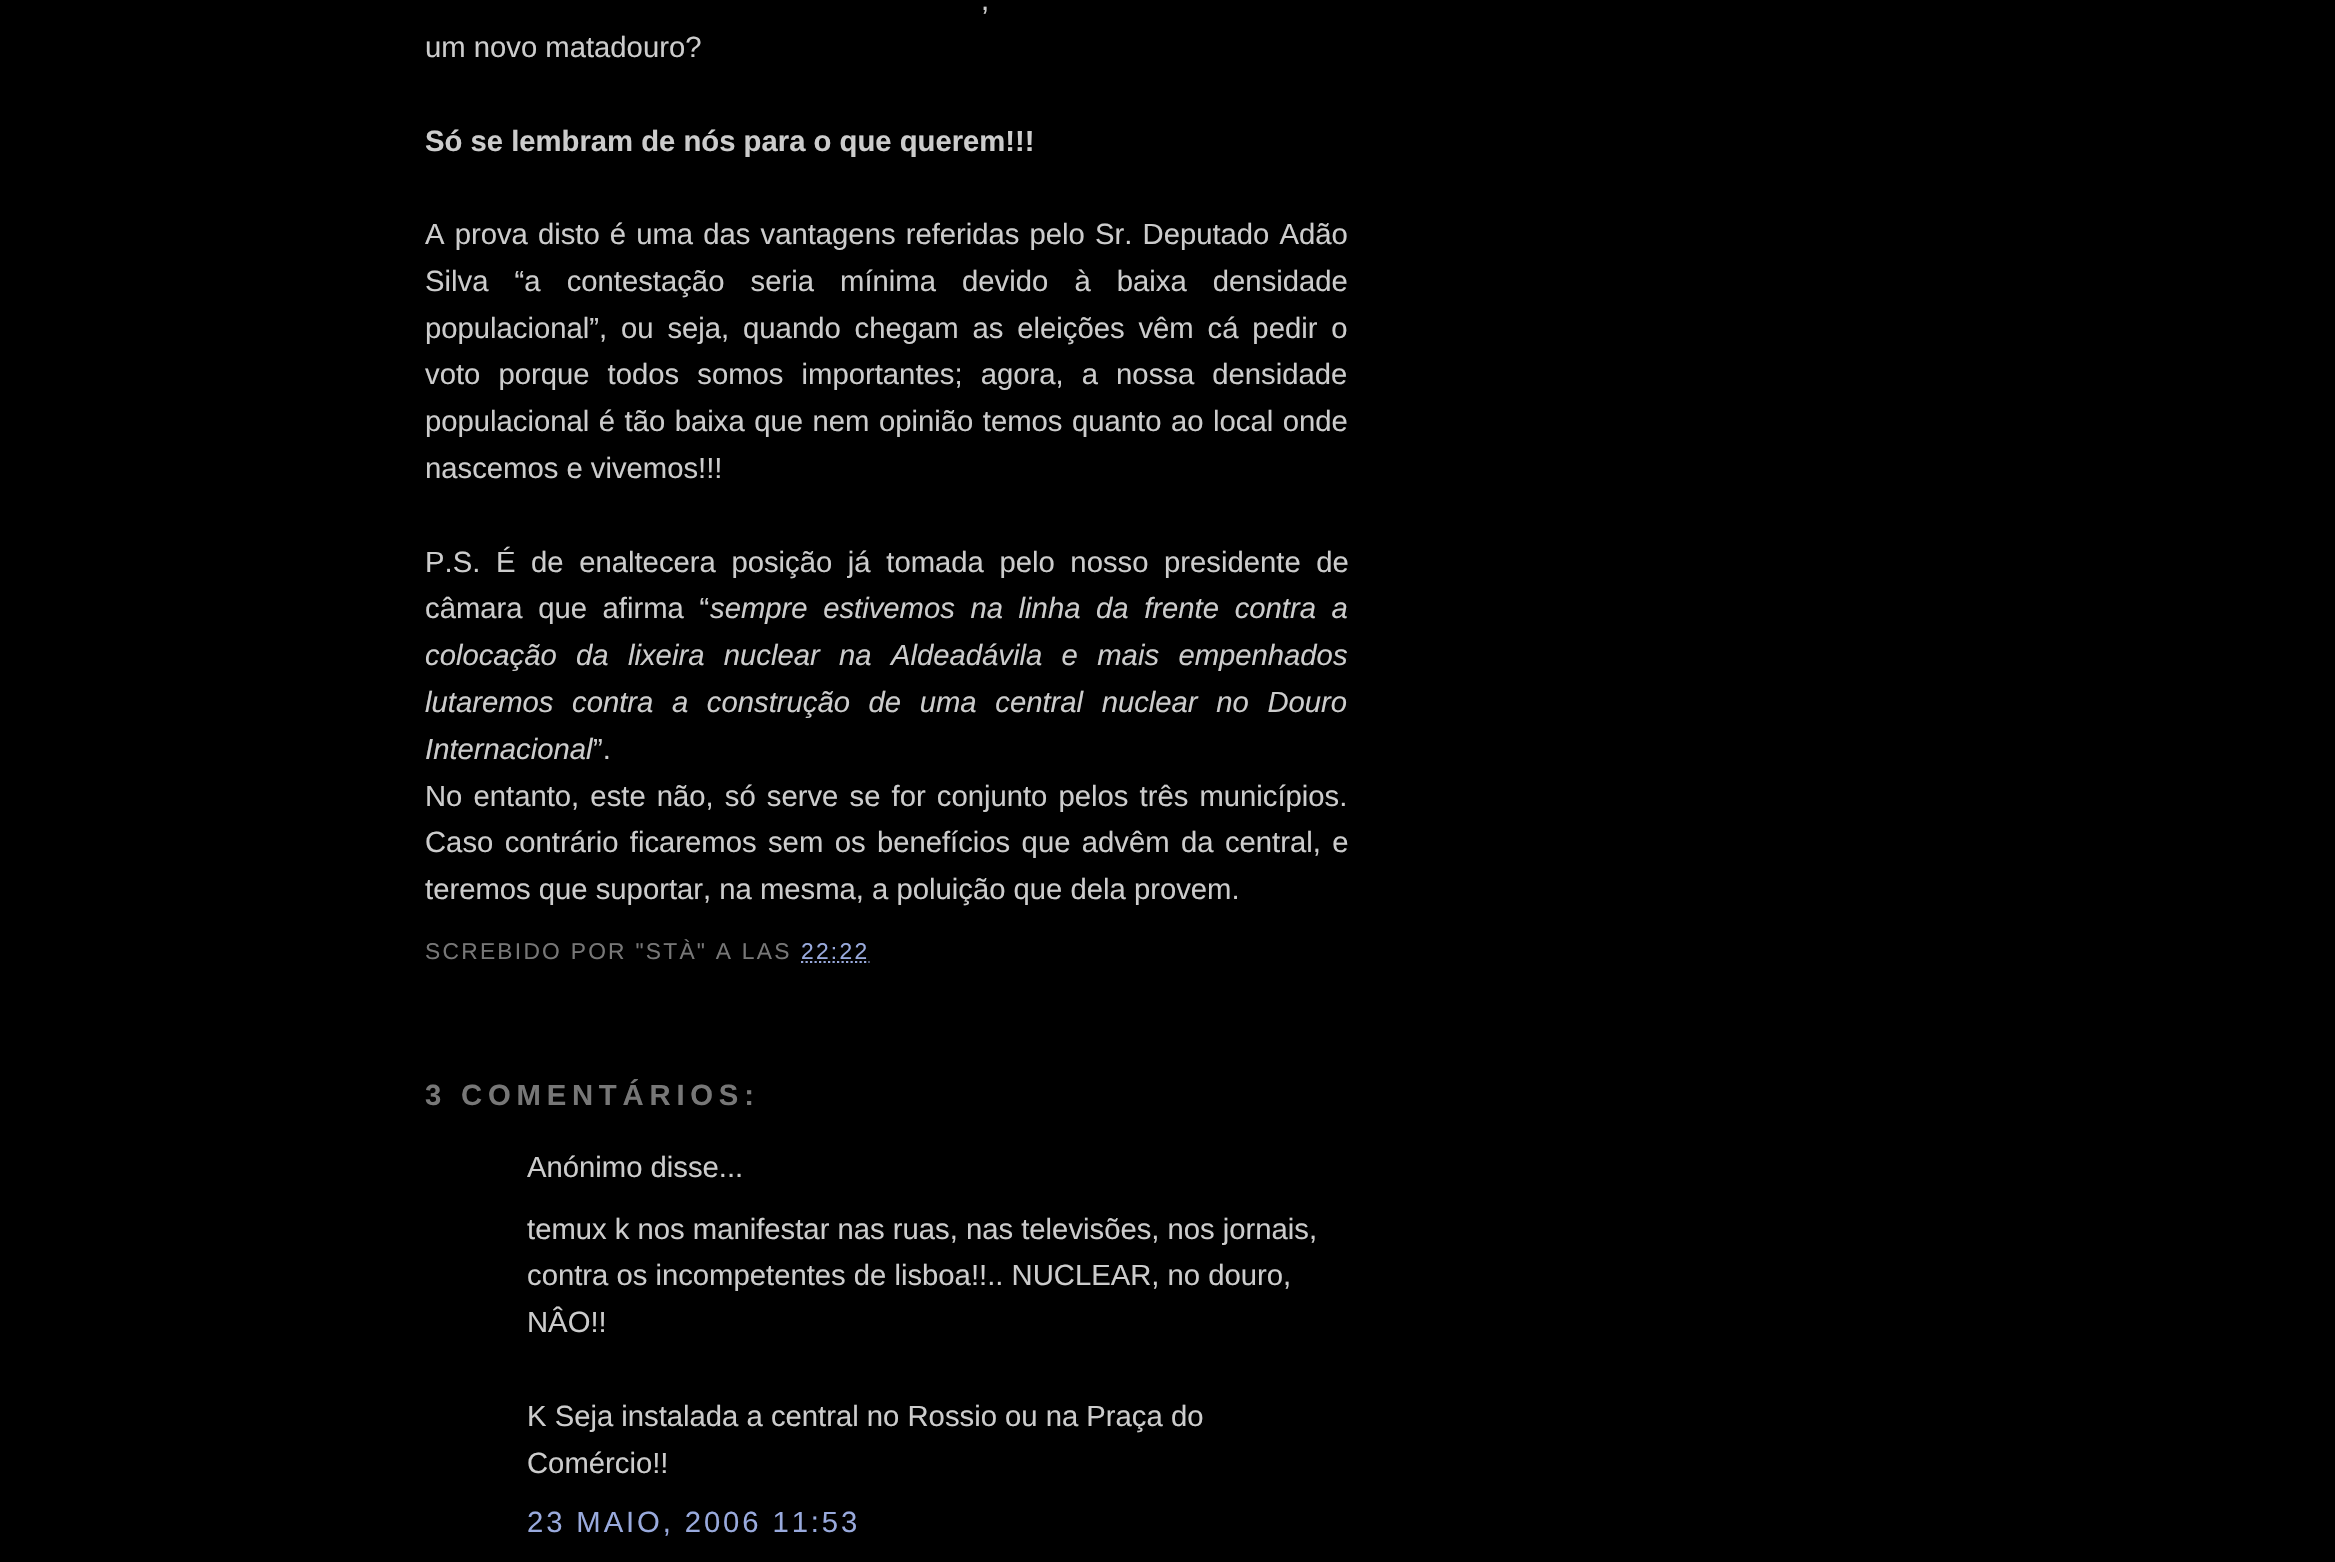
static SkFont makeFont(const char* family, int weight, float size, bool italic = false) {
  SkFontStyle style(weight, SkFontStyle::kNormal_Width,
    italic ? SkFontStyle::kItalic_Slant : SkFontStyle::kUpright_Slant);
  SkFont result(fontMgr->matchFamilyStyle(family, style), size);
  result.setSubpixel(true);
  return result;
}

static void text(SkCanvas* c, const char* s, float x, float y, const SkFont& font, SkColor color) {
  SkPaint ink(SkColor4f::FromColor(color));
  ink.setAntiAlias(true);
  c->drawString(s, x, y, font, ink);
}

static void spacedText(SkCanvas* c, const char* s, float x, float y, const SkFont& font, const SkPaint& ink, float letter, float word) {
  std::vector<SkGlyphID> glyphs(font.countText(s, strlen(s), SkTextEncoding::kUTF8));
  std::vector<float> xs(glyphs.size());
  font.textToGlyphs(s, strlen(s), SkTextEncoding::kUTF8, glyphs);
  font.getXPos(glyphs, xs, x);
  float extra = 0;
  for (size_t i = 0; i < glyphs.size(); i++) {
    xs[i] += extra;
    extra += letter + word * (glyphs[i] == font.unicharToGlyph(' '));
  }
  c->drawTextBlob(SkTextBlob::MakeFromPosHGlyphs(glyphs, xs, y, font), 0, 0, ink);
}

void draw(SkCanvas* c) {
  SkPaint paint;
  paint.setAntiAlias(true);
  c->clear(0xff000000);
  SkFont face1 = makeFont("Liberation Sans", 400, 29.25f);
  paint.setColor(0xffcccccc);
  spacedText(c, ",", 981, 10, face1, paint, 0, 4);
  text(c, "um novo matadouro?", 425, 57, face1, 0xffcccccc);
  SkFont face2 = makeFont("Liberation Sans", 700, 29.25f);
  text(c, "Só se lembram de nós para o que querem!!!", 425, 151, face2, 0xffcccccc);
  spacedText(c, "A prova disto é uma das vantagens referidas pelo Sr. Deputado Adão", 425, 244, face1, paint, 0, 2);
  spacedText(c, "Silva “a contestação seria mínima devido à baixa densidade", 425, 291, face1, paint, 0, 18);
  spacedText(c, "populacional”, ou seja, quando chegam as eleições vêm cá pedir o", 425, 338, face1, paint, 0, 5.75f);
  spacedText(c, "voto porque todos somos importantes; agora, a nossa densidade", 425, 384, face1, paint, 0, 10);
  spacedText(c, "populacional é tão baixa que nem opinião temos quanto ao local onde", 425, 431, face1, paint, 0, 1.4f);
  text(c, "nascemos e vivemos!!!", 425, 478, face1, 0xffcccccc);
  spacedText(c, "P.S. É de enaltecera posição já tomada pelo nosso presidente de", 425, 572, face1, paint, 0, 7.5f);
  spacedText(c, "câmara que afirma “", 425, 618, face1, paint, 0, 7.5f);
  SkFont face3 = makeFont("Liberation Sans", 400, 29.25f, true);
  spacedText(c, "sempre estivemos na linha da frente contra a", 710, 618, face3, paint, 0, 7.5f);
  spacedText(c, "colocação da lixeira nuclear na Aldeadávila e mais empenhados", 425, 665, face3, paint, 0, 11.25f);
  spacedText(c, "lutaremos contra a construção de uma central nuclear no Douro", 425, 712, face3, paint, 0, 10.5f);
  text(c, "Internacional", 425, 759, face3, 0xffcccccc);
  text(c, "”.", 593, 759, face1, 0xffcccccc);
  spacedText(c, "No entanto, este não, só serve se for conjunto pelos três municípios.", 425, 806, face1, paint, 0, 3);
  spacedText(c, "Caso contrário ficaremos sem os benefícios que advêm da central, e", 425, 852, face1, paint, 0, 3.25f);
  text(c, "teremos que suportar, na mesma, a poluição que dela provem.", 425, 899, face1, 0xffcccccc);
  SkFont face4 = makeFont("Liberation Sans", 400, 22.8f);
  paint.setColor(0xff777777);
  spacedText(c, "SCREBIDO POR \"STÀ\" A LAS", 425, 959, face4, paint, 2.25f, 0);
  paint.setColor(0xff99aadd);
  spacedText(c, "22:22", 801, 959, face4, paint, 2.25f, 0);
  paint.setStyle(SkPaint::kStroke_Style);
  paint.setStrokeWidth(2.2f);
  paint.setPathEffect(SkDashPathEffect::Make({{2.25f, 2.25f}}, 0));
  c->drawPath(SkPathBuilder().moveTo(801, 962).lineTo(869.5f, 962).detach(), paint);
  paint.setPathEffect(nullptr);
  paint.setStyle(SkPaint::kFill_Style);
  paint.setColor(0xff777777);
  spacedText(c, "3 COMENTÁRIOS:", 425, 1105, face2, paint, 5.8f, 0);
  text(c, "Anónimo disse...", 527, 1177, face1, 0xffcccccc);
  text(c, "temux k nos manifestar nas ruas, nas televisões, nos jornais,", 527, 1239, face1, 0xffcccccc);
  text(c, "contra os incompetentes de lisboa!!.. NUCLEAR, no douro,", 527, 1285, face1, 0xffcccccc);
  text(c, "NÂO!!", 527, 1332, face1, 0xffcccccc);
  text(c, "K Seja instalada a central no Rossio ou na Praça do", 527, 1426, face1, 0xffcccccc);
  text(c, "Comércio!!", 527, 1473, face1, 0xffcccccc);
  paint.setColor(0xff99aadd);
  spacedText(c, "23 MAIO, 2006 11:53", 527, 1532, face1, paint, 2.9f, 0);
}
